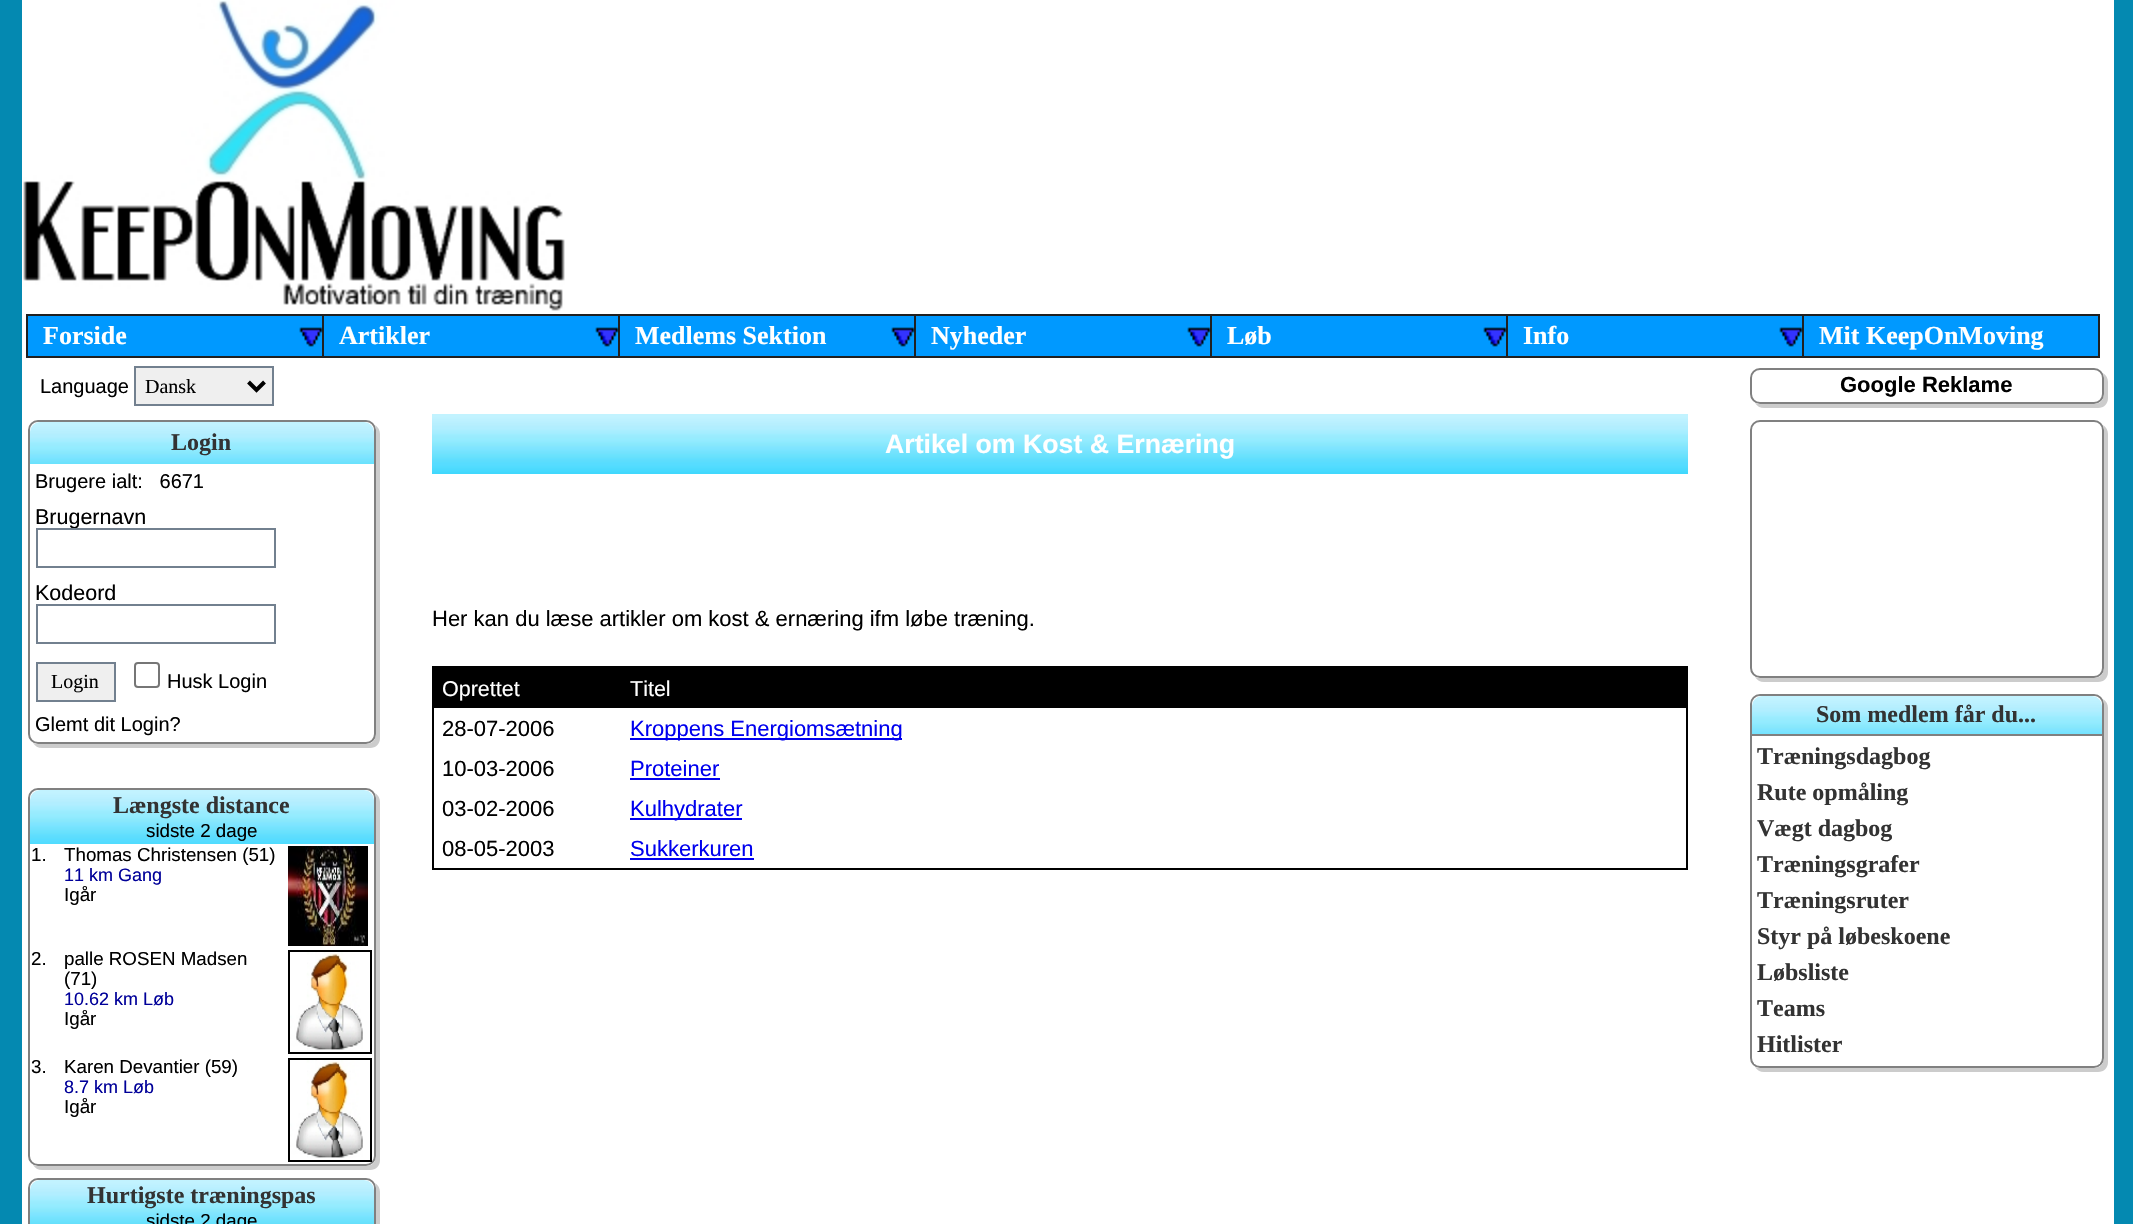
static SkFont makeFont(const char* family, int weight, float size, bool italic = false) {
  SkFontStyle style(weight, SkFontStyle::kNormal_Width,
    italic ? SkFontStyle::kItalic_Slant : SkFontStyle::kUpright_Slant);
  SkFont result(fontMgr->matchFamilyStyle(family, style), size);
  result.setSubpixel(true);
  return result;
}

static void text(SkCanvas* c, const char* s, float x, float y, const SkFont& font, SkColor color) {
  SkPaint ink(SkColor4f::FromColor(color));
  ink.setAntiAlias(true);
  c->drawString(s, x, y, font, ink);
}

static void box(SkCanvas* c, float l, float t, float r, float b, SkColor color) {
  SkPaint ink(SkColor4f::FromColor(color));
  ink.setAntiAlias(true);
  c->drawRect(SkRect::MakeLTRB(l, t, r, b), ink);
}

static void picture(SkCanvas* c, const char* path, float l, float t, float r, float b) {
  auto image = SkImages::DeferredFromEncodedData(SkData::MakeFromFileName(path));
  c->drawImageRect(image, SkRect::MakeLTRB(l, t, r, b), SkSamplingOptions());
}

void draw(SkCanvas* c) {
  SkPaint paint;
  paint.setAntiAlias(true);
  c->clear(0xff0489b1);
  box(c, 22, 0, 2114, 1224, 0xffffffff);
  picture(c, "img_01.png", 23, 0, 565, 311);
  box(c, 28, 316, 322, 356, 0xff0099ff);
  box(c, 26, 314, 28, 358, 0xff202020);
  box(c, 28, 314, 2100, 316, 0xff202020);
  box(c, 322, 314, 324, 358, 0xff202020);
  box(c, 28, 356, 324, 358, 0xff202020);
  SkFont face1 = makeFont("Liberation Serif", 700, 26);
  text(c, "Forside", 43, 344, face1, 0xffffffff);
  picture(c, "img_02.png", 299, 327, 323, 347);
  box(c, 324, 316, 618, 356, 0xff0099ff);
  box(c, 618, 314, 620, 358, 0xff202020);
  box(c, 324, 356, 620, 358, 0xff202020);
  text(c, "Artikler", 339, 344, face1, 0xffffffff);
  picture(c, "img_02.png", 595, 327, 619, 347);
  box(c, 620, 316, 914, 356, 0xff0099ff);
  box(c, 914, 314, 916, 358, 0xff202020);
  box(c, 620, 356, 916, 358, 0xff202020);
  text(c, "Medlems Sektion", 635, 344, face1, 0xffffffff);
  picture(c, "img_03.png", 891, 327, 915, 347);
  box(c, 916, 316, 1210, 356, 0xff0099ff);
  box(c, 1210, 314, 1212, 358, 0xff202020);
  box(c, 916, 356, 1212, 358, 0xff202020);
  text(c, "Nyheder", 931, 344, face1, 0xffffffff);
  picture(c, "img_03.png", 1187, 327, 1211, 347);
  box(c, 1212, 316, 1506, 356, 0xff0099ff);
  box(c, 1506, 314, 1508, 358, 0xff202020);
  box(c, 1212, 356, 1508, 358, 0xff202020);
  text(c, "Løb", 1227, 344, face1, 0xffffffff);
  picture(c, "img_03.png", 1483, 327, 1507, 347);
  box(c, 1508, 316, 1802, 356, 0xff0099ff);
  box(c, 1802, 314, 1804, 358, 0xff202020);
  box(c, 1508, 356, 1804, 358, 0xff202020);
  text(c, "Info", 1523, 344, face1, 0xffffffff);
  picture(c, "img_02.png", 1779, 327, 1803, 347);
  box(c, 1804, 316, 2098, 356, 0xff0099ff);
  box(c, 2098, 314, 2100, 358, 0xff202020);
  box(c, 1804, 356, 2100, 358, 0xff202020);
  text(c, "Mit KeepOnMoving", 1819, 344, face1, 0xffffffff);
  SkFont face2 = makeFont("Liberation Sans", 400, 20);
  text(c, "Language", 40, 393, face2, 0xff000000);
  paint.setColor(0xffefefef);
  c->drawRect(SkRect::MakeLTRB(135, 367, 273, 405), paint);
  paint.setStyle(SkPaint::kStroke_Style);
  paint.setStrokeWidth(2);
  paint.setColor(0xff72808f);
  c->drawRect(SkRect::MakeLTRB(135, 367, 273, 405), paint);
  paint.setStrokeWidth(4);
  paint.setColor(0xff000000);
  c->drawPath(SkPathBuilder().moveTo(248.5f, 382).lineTo(256.5f, 390).lineTo(264.5f, 382).detach(), paint);
  SkFont face3 = makeFont("Liberation Serif", 400, 20);
  text(c, "Dansk", 145, 393, face3, 0xff000000);
  paint.setStyle(SkPaint::kFill_Style);
  paint.setColor(0xffcccccc);
  c->drawPath(SkPathBuilder().moveTo(33, 743).cubicTo(35, 746, 38, 748, 42, 748).lineTo(370, 748).cubicTo(376, 748, 380, 744, 380, 738).lineTo(380, 434).cubicTo(380, 430, 378, 427, 375, 425).cubicTo(376, 427, 376, 428, 376, 430).lineTo(376, 734).cubicTo(376, 740, 372, 744, 366, 744).lineTo(38, 744).cubicTo(36, 744, 35, 744, 33, 743).close().detach(), paint);
  paint.setStyle(SkPaint::kStroke_Style);
  paint.setStrokeWidth(2);
  paint.setColor(0xff808080);
  c->drawRoundRect(SkRect::MakeLTRB(29, 421, 375, 743), 9, 9, paint);
  paint.setStyle(SkPaint::kFill_Style);
  paint.setColor(0xffffffff);
  c->drawPath(SkPathBuilder().moveTo(40, 422).lineTo(364, 422).cubicTo(369.5f, 422, 374, 426.5f, 374, 432).lineTo(374, 464).lineTo(30, 464).lineTo(30, 432).cubicTo(30, 426.5f, 34.5f, 422, 40, 422).close().detach(), paint);
  picture(c, "img_04.png", 30, 422, 374, 464);
  SkFont face4 = makeFont("Liberation Serif", 700, 24);
  text(c, "Login", 171, 450, face4, 0xff333333);
  text(c, "Brugere ialt:   6671", 35, 488, face2, 0xff000000);
  SkFont face5 = makeFont("Liberation Sans", 400, 21.5f);
  text(c, "Brugernavn", 35, 524, face5, 0xff000000);
  paint.setStyle(SkPaint::kStroke_Style);
  paint.setColor(0xff72808f);
  c->drawRect(SkRect::MakeLTRB(37, 529, 275, 567), paint);
  text(c, "Kodeord", 35, 600, face5, 0xff000000);
  c->drawRect(SkRect::MakeLTRB(37, 605, 275, 643), paint);
  paint.setStyle(SkPaint::kFill_Style);
  paint.setColor(0xffefefef);
  c->drawRect(SkRect::MakeLTRB(37, 663, 115, 701), paint);
  paint.setStyle(SkPaint::kStroke_Style);
  paint.setColor(0xff72808f);
  c->drawRect(SkRect::MakeLTRB(37, 663, 115, 701), paint);
  text(c, "Login", 51, 688, face3, 0xff000000);
  paint.setColor(0xff767676);
  c->drawRoundRect(SkRect::MakeLTRB(135, 663, 159, 687), 3, 3, paint);
  text(c, "Husk Login", 167, 688, face2, 0xff000000);
  text(c, "Glemt dit Login?", 35, 731, face2, 0xff000000);
  paint.setStyle(SkPaint::kFill_Style);
  paint.setColor(0xffcccccc);
  c->drawPath(SkPathBuilder().moveTo(33, 1165).cubicTo(35, 1168, 38, 1170, 42, 1170).lineTo(370, 1170).cubicTo(376, 1170, 380, 1166, 380, 1160).lineTo(380, 802).cubicTo(380, 798, 378, 795, 375, 793).cubicTo(376, 795, 376, 796, 376, 798).lineTo(376, 1156).cubicTo(376, 1162, 372, 1166, 366, 1166).lineTo(38, 1166).cubicTo(36, 1166, 35, 1166, 33, 1165).close().detach(), paint);
  paint.setStyle(SkPaint::kStroke_Style);
  paint.setColor(0xff808080);
  c->drawRoundRect(SkRect::MakeLTRB(29, 789, 375, 1165), 9, 9, paint);
  paint.setStyle(SkPaint::kFill_Style);
  paint.setColor(0xffffffff);
  c->drawPath(SkPathBuilder().moveTo(40, 790).lineTo(364, 790).cubicTo(369.5f, 790, 374, 794.5f, 374, 800).lineTo(374, 844).lineTo(30, 844).lineTo(30, 800).cubicTo(30, 794.5f, 34.5f, 790, 40, 790).close().detach(), paint);
  picture(c, "img_05.png", 30, 790, 374, 844);
  text(c, "Længste distance", 113, 813, face4, 0xff333333);
  SkFont face6 = makeFont("Liberation Sans", 400, 18.75f);
  text(c, "sidste 2 dage", 146, 837, face6, 0xff000000);
  text(c, "1.", 31, 861, face6, 0xff000000);
  text(c, "Thomas Christensen (51)", 64, 861, face6, 0xff000000);
  SkFont face7 = makeFont("Liberation Sans", 400, 18);
  text(c, "11 km Gang", 64, 881, face7, 0xff000099);
  text(c, "Igår", 64, 901, face6, 0xff000000);
  picture(c, "img_06.png", 288, 846, 368, 946);
  text(c, "2.", 31, 965, face6, 0xff000000);
  text(c, "palle ROSEN Madsen", 64, 965, face6, 0xff000000);
  text(c, "(71)", 64, 985, face6, 0xff000000);
  text(c, "10.62 km Løb", 64, 1005, face7, 0xff000099);
  text(c, "Igår", 64, 1025, face6, 0xff000000);
  paint.setStyle(SkPaint::kStroke_Style);
  paint.setColor(0xff000000);
  c->drawRect(SkRect::MakeLTRB(289, 951, 371, 1053), paint);
  picture(c, "img_07.png", 290, 952, 363, 1050);
  text(c, "3.", 31, 1073, face6, 0xff000000);
  text(c, "Karen Devantier (59)", 64, 1073, face6, 0xff000000);
  text(c, "8.7 km Løb", 64, 1093, face7, 0xff000099);
  text(c, "Igår", 64, 1113, face6, 0xff000000);
  c->drawRect(SkRect::MakeLTRB(289, 1059, 371, 1161), paint);
  picture(c, "img_07.png", 290, 1060, 363, 1158);
  paint.setStyle(SkPaint::kFill_Style);
  paint.setColor(0xffcccccc);
  c->drawPath(SkPathBuilder().moveTo(33, 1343).cubicTo(35, 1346, 38, 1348, 42, 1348).lineTo(370, 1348).cubicTo(376, 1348, 380, 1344, 380, 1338).lineTo(380, 1192).cubicTo(380, 1188, 378, 1185, 375, 1183).cubicTo(376, 1185, 376, 1186, 376, 1188).lineTo(376, 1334).cubicTo(376, 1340, 372, 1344, 366, 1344).lineTo(38, 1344).cubicTo(36, 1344, 35, 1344, 33, 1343).close().detach(), paint);
  paint.setStyle(SkPaint::kStroke_Style);
  paint.setColor(0xff808080);
  c->drawRoundRect(SkRect::MakeLTRB(29, 1179, 375, 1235), 9, 9, paint);
  paint.setStyle(SkPaint::kFill_Style);
  paint.setColor(0xffffffff);
  c->drawPath(SkPathBuilder().moveTo(40, 1180).lineTo(364, 1180).cubicTo(369.5f, 1180, 374, 1184.5f, 374, 1190).lineTo(374, 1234).lineTo(30, 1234).lineTo(30, 1190).cubicTo(30, 1184.5f, 34.5f, 1180, 40, 1180).close().detach(), paint);
  picture(c, "img_08.png", 30, 1180, 374, 1224);
  text(c, "Hurtigste træningspas", 87, 1203, face4, 0xff333333);
  text(c, "sidste 2 dage", 146, 1227, face6, 0xff000000);
  picture(c, "img_09.png", 432, 414, 1688, 474);
  SkFont face8 = makeFont("Liberation Sans", 700, 26.7f);
  text(c, "Artikel om Kost & Ernæring", 885, 453, face8, 0xffffffff);
  SkFont face9 = makeFont("Liberation Sans", 400, 22);
  text(c, "Her kan du læse artikler om kost & ernæring ifm løbe træning.", 432, 626, face9, 0xff000000);
  box(c, 432, 666, 1688, 870, 0xff000000);
  box(c, 434, 708, 1686, 868, 0xffffffff);
  text(c, "Oprettet", 442, 696, face5, 0xffffffff);
  text(c, "Titel", 630, 696, face5, 0xffffffff);
  text(c, "28-07-2006", 442, 736, face9, 0xff000000);
  box(c, 630, 738, 902, 740, 0xff0000ee);
  text(c, "Kroppens Energiomsætning", 630, 736, face9, 0xff0000ee);
  text(c, "10-03-2006", 442, 776, face9, 0xff000000);
  text(c, "Proteiner", 630, 776, face9, 0xff0000ee);
  box(c, 630, 778, 720, 780, 0xff0000ee);
  text(c, "03-02-2006", 442, 816, face9, 0xff000000);
  box(c, 630, 818, 742, 820, 0xff0000ee);
  text(c, "Kulhydrater", 630, 816, face9, 0xff0000ee);
  text(c, "08-05-2003", 442, 856, face9, 0xff000000);
  text(c, "Sukkerkuren", 630, 856, face9, 0xff0000ee);
  box(c, 630, 858, 754, 860, 0xff0000ee);
  paint.setColor(0xffcccccc);
  c->drawPath(SkPathBuilder().moveTo(1755, 403).cubicTo(1757, 406, 1760, 408, 1764, 408).lineTo(2098, 408).cubicTo(2104, 408, 2108, 404, 2108, 398).lineTo(2108, 382).cubicTo(2108, 378, 2106, 375, 2103, 373).cubicTo(2104, 375, 2104, 376, 2104, 378).lineTo(2104, 394).cubicTo(2104, 400, 2100, 404, 2094, 404).lineTo(1760, 404).cubicTo(1758, 404, 1757, 404, 1755, 403).close().detach(), paint);
  paint.setStyle(SkPaint::kStroke_Style);
  paint.setColor(0xff808080);
  c->drawRoundRect(SkRect::MakeLTRB(1751, 369, 2103, 403), 9, 9, paint);
  SkFont face10 = makeFont("Liberation Sans", 700, 22);
  text(c, "Google Reklame", 1840, 392, face10, 0xff000000);
  paint.setStyle(SkPaint::kFill_Style);
  paint.setColor(0xffcccccc);
  c->drawPath(SkPathBuilder().moveTo(1755, 677).cubicTo(1757, 680, 1760, 682, 1764, 682).lineTo(2098, 682).cubicTo(2104, 682, 2108, 678, 2108, 672).lineTo(2108, 434).cubicTo(2108, 430, 2106, 427, 2103, 425).cubicTo(2104, 427, 2104, 428, 2104, 430).lineTo(2104, 668).cubicTo(2104, 674, 2100, 678, 2094, 678).lineTo(1760, 678).cubicTo(1758, 678, 1757, 678, 1755, 677).close().detach(), paint);
  paint.setStyle(SkPaint::kStroke_Style);
  paint.setColor(0xff808080);
  c->drawRoundRect(SkRect::MakeLTRB(1751, 421, 2103, 677), 9, 9, paint);
  paint.setStyle(SkPaint::kFill_Style);
  paint.setColor(0xffcccccc);
  c->drawPath(SkPathBuilder().moveTo(1755, 1067).cubicTo(1757, 1070, 1760, 1072, 1764, 1072).lineTo(2098, 1072).cubicTo(2104, 1072, 2108, 1068, 2108, 1062).lineTo(2108, 708).cubicTo(2108, 704, 2106, 701, 2103, 699).cubicTo(2104, 701, 2104, 702, 2104, 704).lineTo(2104, 1058).cubicTo(2104, 1064, 2100, 1068, 2094, 1068).lineTo(1760, 1068).cubicTo(1758, 1068, 1757, 1068, 1755, 1067).close().detach(), paint);
  paint.setStyle(SkPaint::kStroke_Style);
  paint.setColor(0xff808080);
  c->drawRoundRect(SkRect::MakeLTRB(1751, 695, 2103, 1067), 9, 9, paint);
  paint.setStyle(SkPaint::kFill_Style);
  paint.setColor(0xffffffff);
  c->drawPath(SkPathBuilder().moveTo(1762, 696).lineTo(2092, 696).cubicTo(2097.5f, 696, 2102, 700.5f, 2102, 706).lineTo(2102, 736).lineTo(1752, 736).lineTo(1752, 706).cubicTo(1752, 700.5f, 1756.5f, 696, 1762, 696).close().detach(), paint);
  picture(c, "img_10.png", 1752, 696, 2102, 734);
  box(c, 1752, 734, 2102, 736, 0xff808080);
  text(c, "Som medlem får du...", 1816, 722, face4, 0xff333333);
  c->drawPath(SkPathBuilder().moveTo(1764, 738).lineTo(2090, 738).cubicTo(2095.5f, 738, 2100, 742.5f, 2100, 748).lineTo(2100, 1064).lineTo(1754, 1064).lineTo(1754, 748).cubicTo(1754, 742.5f, 1758.5f, 738, 1764, 738).close().detach(), paint);
  text(c, "Træningsdagbog", 1757, 764, face4, 0xff333333);
  text(c, "Rute opmåling", 1757, 800, face4, 0xff333333);
  text(c, "Vægt dagbog", 1757, 836, face4, 0xff333333);
  text(c, "Træningsgrafer", 1757, 872, face4, 0xff333333);
  text(c, "Træningsruter", 1757, 908, face4, 0xff333333);
  text(c, "Styr på løbeskoene", 1757, 944, face4, 0xff333333);
  text(c, "Løbsliste", 1757, 980, face4, 0xff333333);
  text(c, "Teams", 1757, 1016, face4, 0xff333333);
  text(c, "Hitlister", 1757, 1052, face4, 0xff333333);
}
